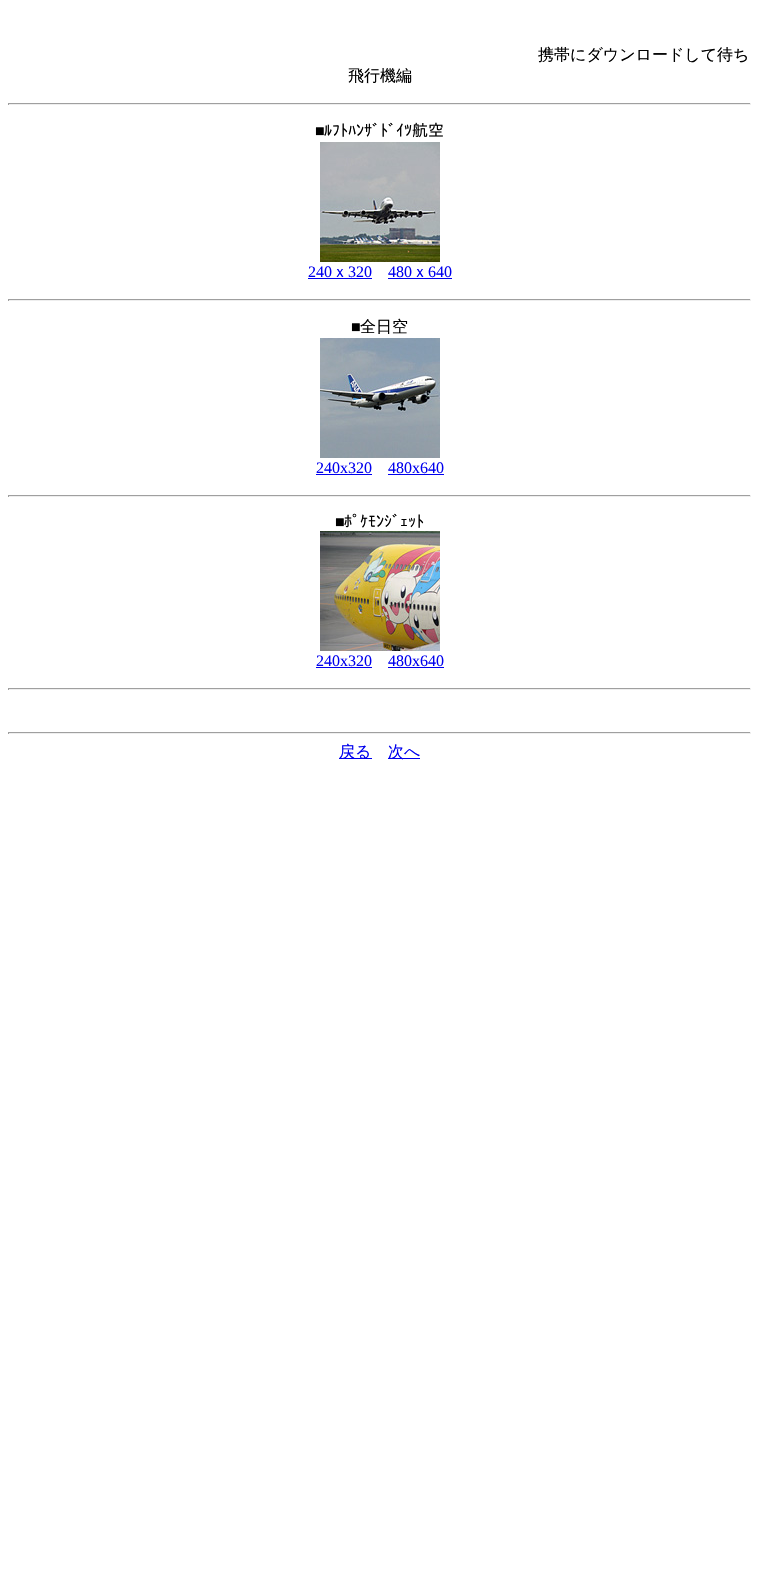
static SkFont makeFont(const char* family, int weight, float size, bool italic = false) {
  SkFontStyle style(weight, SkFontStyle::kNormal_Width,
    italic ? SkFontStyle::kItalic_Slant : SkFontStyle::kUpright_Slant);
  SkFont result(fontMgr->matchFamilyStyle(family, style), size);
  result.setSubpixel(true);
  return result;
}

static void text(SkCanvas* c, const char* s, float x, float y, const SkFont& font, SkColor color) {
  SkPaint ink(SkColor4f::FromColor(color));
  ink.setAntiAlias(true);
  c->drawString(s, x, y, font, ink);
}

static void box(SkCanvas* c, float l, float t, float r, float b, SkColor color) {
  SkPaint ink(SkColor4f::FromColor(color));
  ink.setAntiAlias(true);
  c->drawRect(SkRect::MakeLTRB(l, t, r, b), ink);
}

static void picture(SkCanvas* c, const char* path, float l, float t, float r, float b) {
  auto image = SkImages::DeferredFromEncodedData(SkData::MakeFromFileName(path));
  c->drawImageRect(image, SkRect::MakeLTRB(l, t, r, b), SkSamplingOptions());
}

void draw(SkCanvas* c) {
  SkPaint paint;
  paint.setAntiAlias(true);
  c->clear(0xffffffff);
  SkFont face1 = makeFont("WenQuanYi Zen Hei", 500, 16);
  text(c, "携帯にダウンロードして待ち", 538, 60, face1, 0xff000000);
  text(c, "飛行機編", 348, 81, face1, 0xff000000);
  box(c, 8, 103, 751, 104, 0xff9f9f9f);
  box(c, 750, 103, 751, 105, 0xffeeeeee);
  box(c, 8, 104, 751, 105, 0xffeeeeee);
  box(c, 8, 103, 9, 105, 0xff9f9f9f);
  SkFont face2 = makeFont("Liberation Serif", 400, 16);
  text(c, "■", 315, 136, face2, 0xff000000);
  SkFont face3 = makeFont("IPAPGothic", 400, 16);
  text(c, "ﾙﾌﾄﾊﾝｻﾞﾄﾞｲﾂ航空", 324, 136, face3, 0xff000000);
  picture(c, "img_01.png", 320, 142, 440, 262);
  text(c, "240", 308, 277, face2, 0xff0000ee);
  text(c, "ｘ", 332, 277, face1, 0xff0000ee);
  box(c, 308, 278, 372, 279, 0xff0000ee);
  text(c, "320", 348, 277, face2, 0xff0000ee);
  text(c, "480", 388, 277, face2, 0xff0000ee);
  text(c, "ｘ", 412, 277, face1, 0xff0000ee);
  box(c, 388, 278, 452, 279, 0xff0000ee);
  text(c, "640", 428, 277, face2, 0xff0000ee);
  box(c, 8, 299, 751, 300, 0xff9f9f9f);
  box(c, 750, 299, 751, 301, 0xffeeeeee);
  box(c, 8, 300, 751, 301, 0xffeeeeee);
  box(c, 8, 299, 9, 301, 0xff9f9f9f);
  text(c, "■", 351, 332, face2, 0xff000000);
  text(c, "全日空", 360, 332, face1, 0xff000000);
  picture(c, "img_02.png", 320, 338, 440, 458);
  text(c, "240x320", 316, 473, face2, 0xff0000ee);
  box(c, 316, 474, 372, 475, 0xff0000ee);
  text(c, "480x640", 388, 473, face2, 0xff0000ee);
  box(c, 388, 474, 444, 475, 0xff0000ee);
  box(c, 8, 495, 751, 496, 0xff9f9f9f);
  box(c, 750, 495, 751, 497, 0xffeeeeee);
  box(c, 8, 496, 751, 497, 0xffeeeeee);
  box(c, 8, 495, 9, 497, 0xff9f9f9f);
  text(c, "■", 335, 527, face2, 0xff000000);
  text(c, "ﾎﾟｹﾓﾝｼﾞｪｯﾄ", 344, 527, face3, 0xff000000);
  picture(c, "img_03.png", 320, 531, 440, 651);
  text(c, "240x320", 316, 666, face2, 0xff0000ee);
  box(c, 316, 667, 372, 668, 0xff0000ee);
  text(c, "480x640", 388, 666, face2, 0xff0000ee);
  box(c, 388, 667, 444, 668, 0xff0000ee);
  box(c, 8, 688, 751, 689, 0xff9f9f9f);
  box(c, 750, 688, 751, 690, 0xffeeeeee);
  box(c, 8, 689, 751, 690, 0xffeeeeee);
  box(c, 8, 688, 9, 690, 0xff9f9f9f);
  box(c, 8, 732, 751, 733, 0xff9f9f9f);
  box(c, 750, 732, 751, 734, 0xffeeeeee);
  box(c, 8, 733, 751, 734, 0xffeeeeee);
  box(c, 8, 732, 9, 734, 0xff9f9f9f);
  box(c, 339, 758, 372, 759, 0xff0000ee);
  text(c, "戻る", 339, 757, face1, 0xff0000ee);
  box(c, 388, 758, 420, 759, 0xff0000ee);
  text(c, "次へ", 388, 757, face1, 0xff0000ee);
}
